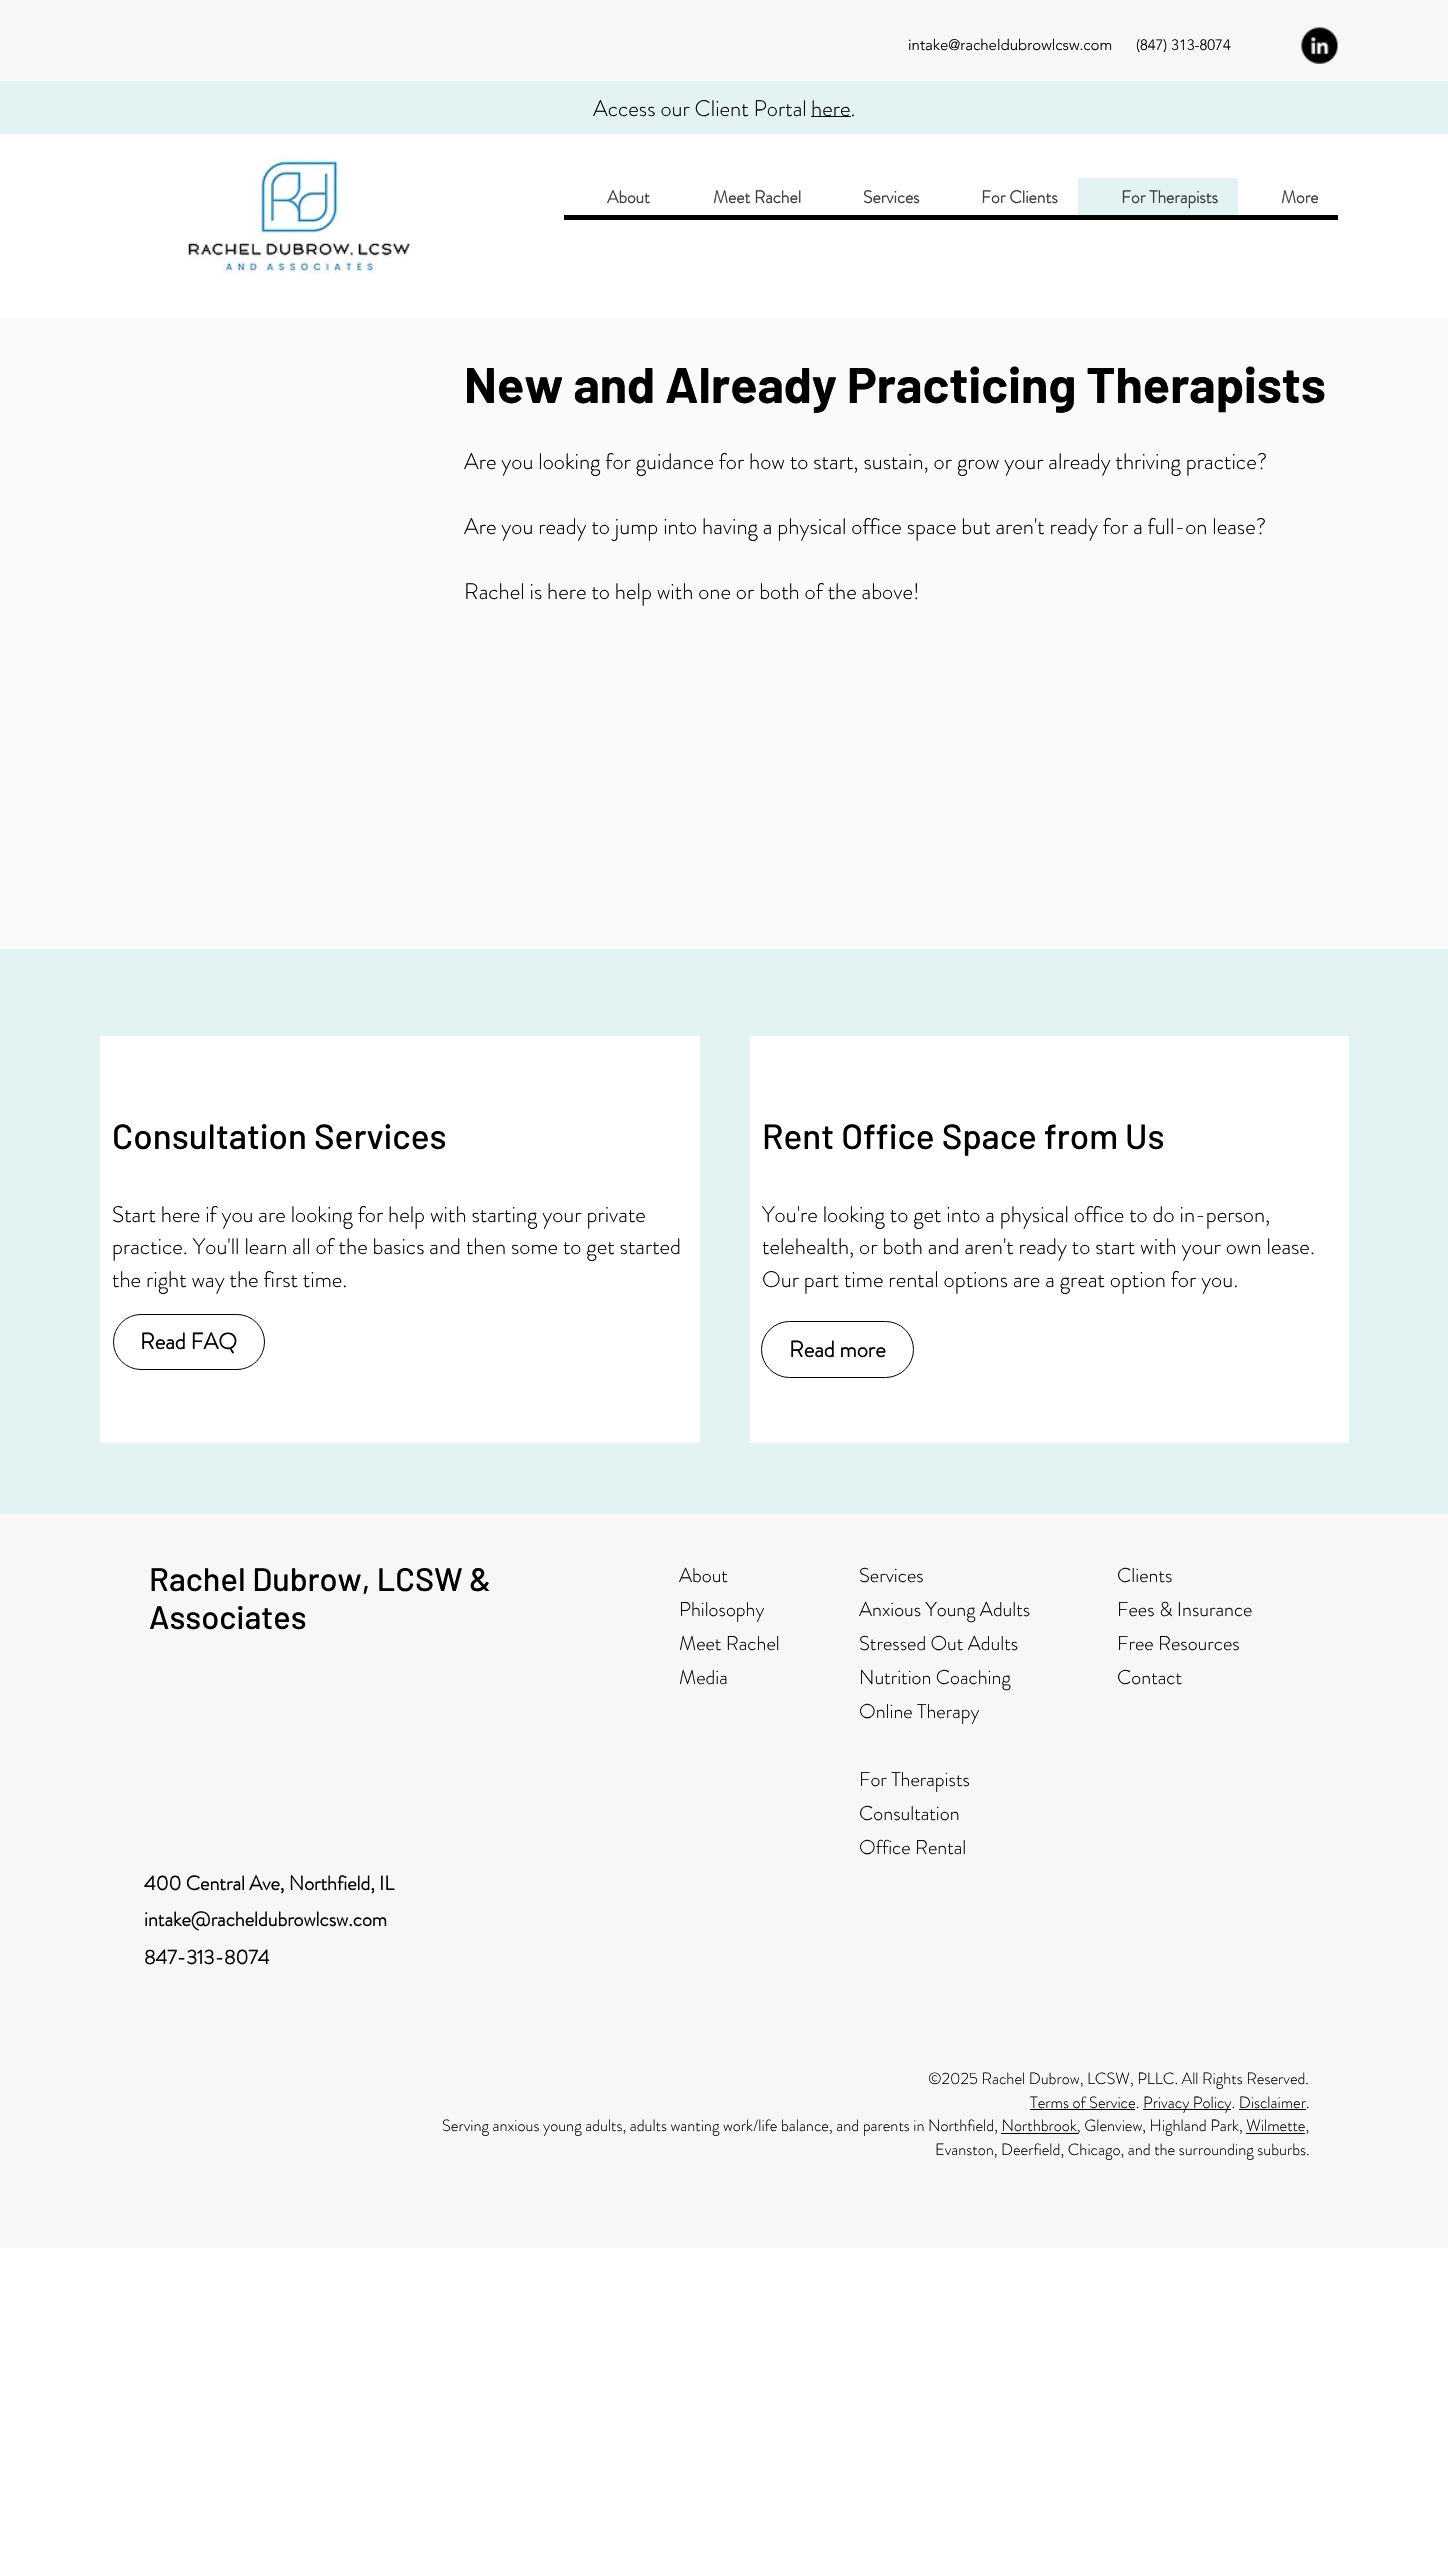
static SkFont makeFont(const char* family, int weight, float size, bool italic = false) {
  SkFontStyle style(weight, SkFontStyle::kNormal_Width,
    italic ? SkFontStyle::kItalic_Slant : SkFontStyle::kUpright_Slant);
  SkFont result(fontMgr->matchFamilyStyle(family, style), size);
  result.setSubpixel(true);
  return result;
}

static void text(SkCanvas* c, const char* s, float x, float y, const SkFont& font, SkColor color) {
  SkPaint ink(SkColor4f::FromColor(color));
  ink.setAntiAlias(true);
  c->drawString(s, x, y, font, ink);
}

static void box(SkCanvas* c, float l, float t, float r, float b, SkColor color) {
  SkPaint ink(SkColor4f::FromColor(color));
  ink.setAntiAlias(true);
  c->drawRect(SkRect::MakeLTRB(l, t, r, b), ink);
}

static void picture(SkCanvas* c, const char* path, float l, float t, float r, float b) {
  auto image = SkImages::DeferredFromEncodedData(SkData::MakeFromFileName(path));
  c->drawImageRect(image, SkRect::MakeLTRB(l, t, r, b), SkSamplingOptions());
}

void draw(SkCanvas* c) {
  SkPaint paint;
  paint.setAntiAlias(true);
  c->clear(0xffffffff);
  box(c, 0, 0, 1448, 81, 0xfff7f7f7);
  SkFont face1 = makeFont("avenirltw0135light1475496", 300, 15);
  text(c, "intake@racheldubrowlcsw.com", 908, 50, face1, 0xff000000);
  text(c, "(847) 313-8074", 1136, 50, face1, 0xff000000);
  picture(c, "img_01.png", 1301, 27, 1338, 64);
  box(c, 0, 81, 1448, 134, 0xffe3f2f3);
  SkFont face2 = makeFont("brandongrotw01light", 300, 22.5f);
  text(c, "Access our Client Portal", 593, 116, face2, 0xff000000);
  box(c, 811, 116, 851, 117, 0xff000000);
  text(c, "here.", 811, 116, face2, 0xff000000);
  picture(c, "img_02.png", 188, 154, 412, 274);
  paint.setColor(0xff000000);
  c->drawPath(SkPathBuilder().moveTo(564, 215).lineTo(564, 220).lineTo(1338, 220).lineTo(1338, 183).lineTo(1338, 215).close().detach(), paint);
  SkFont face3 = makeFont("brandongrotw01light", 700, 17.5f);
  text(c, "About", 607, 203, face3, 0xff404040);
  text(c, "Meet Rachel", 713, 203, face3, 0xff404040);
  text(c, "Services", 863, 203, face3, 0xff404040);
  text(c, "For Clients", 981, 203, face3, 0xff404040);
  box(c, 1078, 178, 1238, 215, 0xffe3f2f3);
  text(c, "For Therapists", 1121, 203, face3, 0xff404040);
  text(c, "More", 1281, 203, face3, 0xff404040);
  box(c, 0, 318, 1448, 949, 0xfffafafa);
  SkFont face4 = makeFont("Barlow", 700, 50);
  text(c, "New and Already Practicing Therapists", 464, 403, face4, 0xff000000);
  text(c, "Are you looking for guidance for how to start, sustain, or grow your already thriving practice?", 464, 469, face2, 0xff000000);
  text(c, "Are you ready to jump into having a physical office space but aren't ready for a full-on lease?", 464, 534, face2, 0xff000000);
  text(c, "Rachel is here to help with one or both of the above!", 464, 599, face2, 0xff000000);
  box(c, 0, 949, 1448, 1514, 0xffe3f2f3);
  box(c, 100, 1036, 700, 1443, 0xffffffff);
  SkFont face5 = makeFont("Barlow", 500, 35);
  text(c, "Consultation Services", 112, 1149, face5, 0xff000000);
  text(c, "Start here if you are looking for help with starting your private", 112, 1222, face2, 0xff000000);
  text(c, "practice. You'll learn all of the basics and then some to get started", 112, 1254, face2, 0xff000000);
  text(c, "the right way the first time.", 112, 1287, face2, 0xff000000);
  paint.setStyle(SkPaint::kStroke_Style);
  paint.setStrokeWidth(1);
  c->drawRoundRect(SkRect::MakeLTRB(113.5f, 1314.5f, 264.5f, 1369.5f), 27.5f, 27.5f, paint);
  SkFont face6 = makeFont("brandongrotw01light", 700, 22.5f);
  text(c, "Read FAQ", 140, 1349, face6, 0xff000000);
  box(c, 750, 1036, 1349, 1443, 0xffffffff);
  text(c, "Rent Office Space from Us", 762, 1149, face5, 0xff000000);
  text(c, "You're looking to get into a physical office to do in-person,", 762, 1222, face2, 0xff000000);
  text(c, "telehealth, or both and aren't ready to start with your own lease.", 762, 1254, face2, 0xff000000);
  text(c, "Our part time rental options are a great option for you.", 762, 1287, face2, 0xff000000);
  c->drawRoundRect(SkRect::MakeLTRB(761.5f, 1321.5f, 913.5f, 1377.5f), 28, 28, paint);
  text(c, "Read more", 789, 1357, face6, 0xff000000);
  box(c, 0, 1514, 1448, 2248, 0xfff7f7f7);
  SkFont face7 = makeFont("Barlow", 500, 32.5f);
  text(c, "Rachel Dubrow, LCSW &", 149, 1591, face7, 0xff000000);
  text(c, "Associates", 149, 1629, face7, 0xff000000);
  SkFont face8 = makeFont("brandongrotw01light", 300, 20);
  text(c, "About", 679, 1582, face8, 0xff000000);
  text(c, "Philosophy", 679, 1616, face8, 0xff000000);
  text(c, "Meet Rachel", 679, 1650, face8, 0xff000000);
  text(c, "Media", 679, 1684, face8, 0xff000000);
  text(c, "Services", 859, 1582, face8, 0xff000000);
  text(c, "Anxious Young Adults", 859, 1616, face8, 0xff000000);
  text(c, "Stressed Out Adults", 859, 1650, face8, 0xff000000);
  text(c, "Nutrition Coaching", 859, 1684, face8, 0xff000000);
  text(c, "Online Therapy", 859, 1718, face8, 0xff000000);
  text(c, "For Therapists", 859, 1786, face8, 0xff000000);
  text(c, "Consultation", 859, 1820, face8, 0xff000000);
  text(c, "Office Rental", 859, 1854, face8, 0xff000000);
  text(c, "Clients", 1117, 1582, face8, 0xff000000);
  text(c, "Fees & Insurance", 1117, 1616, face8, 0xff000000);
  text(c, "Free Resources", 1117, 1650, face8, 0xff000000);
  text(c, "Contact", 1117, 1684, face8, 0xff000000);
  SkFont face9 = makeFont("brandongrotw01light", 700, 20);
  text(c, "400 Central Ave, Northfield, IL", 144, 1890, face9, 0xff000000);
  text(c, "intake@racheldubrowlcsw.com", 144, 1926, face9, 0xff000000);
  text(c, "847-313-8074", 144, 1964, face9, 0xff000000);
  SkFont face10 = makeFont("brandongrotw01light", 300, 16.25f);
  text(c, "©2025 Rachel Dubrow, LCSW, PLLC. All Rights Reserved.", 928, 2084, face10, 0xff000000);
  text(c, "Terms of Service.", 1030, 2108, face10, 0xff000000);
  box(c, 1030, 2109, 1135, 2110, 0xff000000);
  box(c, 1143, 2109, 1231, 2110, 0xff000000);
  text(c, "Privacy Policy. Disclaimer.", 1143, 2108, face10, 0xff000000);
  box(c, 1239, 2109, 1306, 2110, 0xff000000);
  text(c, "Serving anxious young adults, adults wanting work/life balance, and parents in Northfield, Northbrook, Glenview, Highland Park, Wilmette,", 442, 2131, face10, 0xff000000);
  box(c, 1001, 2133, 1078, 2134, 0xff000000);
  box(c, 1246, 2133, 1305, 2134, 0xff000000);
  text(c, "Evanston, Deerfield, Chicago, and the surrounding suburbs.", 935, 2155, face10, 0xff000000);
}
